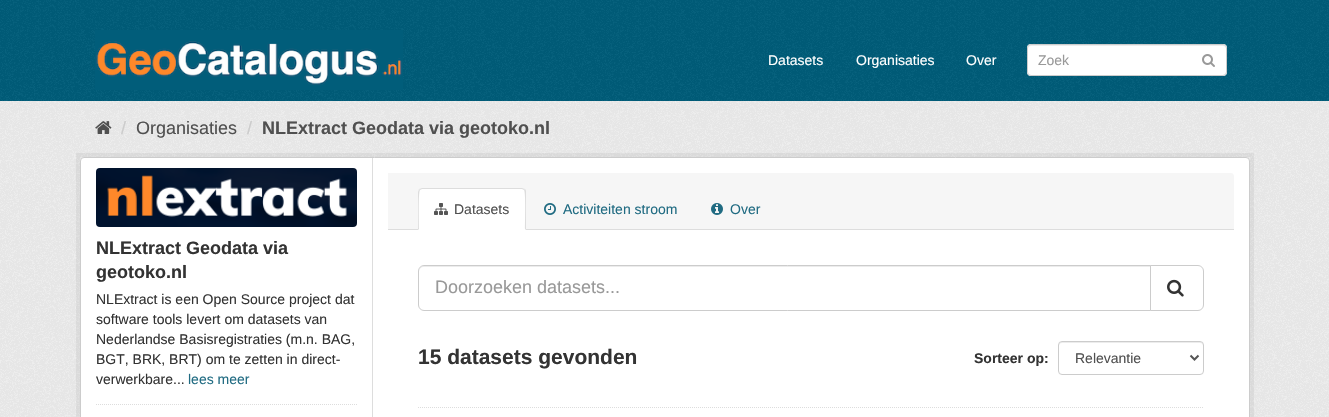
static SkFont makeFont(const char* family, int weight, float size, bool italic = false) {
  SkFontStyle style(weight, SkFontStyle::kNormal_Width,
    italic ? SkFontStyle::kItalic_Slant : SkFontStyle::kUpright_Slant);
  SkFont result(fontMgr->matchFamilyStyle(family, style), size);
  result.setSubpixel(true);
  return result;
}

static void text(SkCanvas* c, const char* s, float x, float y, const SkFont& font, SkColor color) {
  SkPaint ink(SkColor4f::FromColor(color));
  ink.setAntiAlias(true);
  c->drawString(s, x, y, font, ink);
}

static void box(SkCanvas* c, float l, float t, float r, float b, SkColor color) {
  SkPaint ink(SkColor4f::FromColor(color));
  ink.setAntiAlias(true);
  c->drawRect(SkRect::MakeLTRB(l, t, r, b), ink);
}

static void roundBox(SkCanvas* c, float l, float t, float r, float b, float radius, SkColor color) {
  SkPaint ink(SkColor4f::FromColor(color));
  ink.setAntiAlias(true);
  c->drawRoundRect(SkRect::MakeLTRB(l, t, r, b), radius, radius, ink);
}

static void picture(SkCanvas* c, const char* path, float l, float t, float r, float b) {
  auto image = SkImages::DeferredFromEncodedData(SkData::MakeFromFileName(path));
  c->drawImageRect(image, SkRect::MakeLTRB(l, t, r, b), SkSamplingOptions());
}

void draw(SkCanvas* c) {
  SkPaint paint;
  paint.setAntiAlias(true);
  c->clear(0xff005d7a);
  picture(c, "img_01.png", 0, 0, 1329, 20);
  picture(c, "img_02.png", 0, 20, 1329, 101);
  picture(c, "img_03.png", 95, 30, 403, 90);
  SkFont face1 = makeFont("Liberation Sans", 400, 14);
  text(c, "Datasets", 768, 65, face1, 0xffffffff);
  text(c, "Organisaties", 856, 65, face1, 0xffffffff);
  text(c, "Over", 966, 65, face1, 0xffffffff);
  roundBox(c, 1027, 44, 1227, 76, 4, 0xffffffff);
  paint.setColor(0xffececec);
  c->drawPath(SkPathBuilder().moveTo(1031, 46).lineTo(1223, 46).cubicTo(1225, 46, 1226, 47, 1226, 49).cubicTo(1226, 47, 1225, 45, 1223, 45).lineTo(1031, 45).cubicTo(1029, 45, 1028, 47, 1028, 49).cubicTo(1028, 47, 1029, 46, 1031, 46).close().detach(), paint);
  paint.setStyle(SkPaint::kStroke_Style);
  paint.setStrokeWidth(1);
  paint.setColor(0xffcccccc);
  c->drawRoundRect(SkRect::MakeLTRB(1027.5f, 44.5f, 1226.5f, 75.5f), 3.5f, 3.5f, paint);
  text(c, "Zoek", 1038, 65, face1, 0xff999999);
  picture(c, "img_04.png", 1202, 54, 1215, 67);
  box(c, 0, 101, 1329, 417, 0xffeeeeee);
  picture(c, "img_05.png", 0, 101, 1329, 417);
  picture(c, "img_06.png", 95, 121, 112, 134);
  SkFont face2 = makeFont("Liberation Sans", 400, 18);
  text(c, "/", 121, 134, face2, 0xffcccccc);
  text(c, "Organisaties", 136, 134, face2, 0xff505050);
  text(c, "/", 247, 134, face2, 0xffcccccc);
  SkFont face3 = makeFont("Liberation Sans", 700, 18);
  text(c, "NLExtract Geodata via geotoko.nl", 262, 134, face3, 0xff505050);
  paint.setStrokeWidth(4);
  paint.setColor(0x0d000000);
  c->drawRect(SkRect::MakeLTRB(78, 155, 1252, 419), paint);
  paint.setStyle(SkPaint::kFill_Style);
  paint.setColor(0xffffffff);
  c->drawRoundRect(SkRect::MakeLTRB(80.5f, 157.5f, 1249.5f, 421.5f), 3.5f, 3.5f, paint);
  paint.setStyle(SkPaint::kStroke_Style);
  paint.setStrokeWidth(1);
  paint.setColor(0xffcccccc);
  c->drawRoundRect(SkRect::MakeLTRB(80.5f, 157.5f, 1249.5f, 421.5f), 3.5f, 3.5f, paint);
  picture(c, "img_07.png", 96, 168, 357, 227);
  text(c, "NLExtract Geodata via", 96, 254, face3, 0xff333333);
  text(c, "geotoko.nl", 96, 278, face3, 0xff333333);
  text(c, "NLExtract is een Open Source project dat", 96, 304, face1, 0xff333333);
  text(c, "software tools levert om datasets van", 96, 324, face1, 0xff333333);
  text(c, "Nederlandse Basisregistraties (m.n. BAG,", 96, 344, face1, 0xff333333);
  text(c, "BGT, BRK, BRT) om te zetten in direct-", 96, 364, face1, 0xff333333);
  text(c, "verwerkbare...", 96, 384, face1, 0xff333333);
  text(c, "lees meer", 188, 384, face1, 0xff206b82);
  paint.setColor(0xffdddddd);
  paint.setPathEffect(SkDashPathEffect::Make({{1, 1}}, 0));
  c->drawPath(SkPathBuilder().moveTo(96, 404.5f).lineTo(357, 404.5f).detach(), paint);
  paint.setPathEffect(nullptr);
  box(c, 372, 158, 373, 417, 0xffdddddd);
  paint.setStyle(SkPaint::kFill_Style);
  paint.setColor(0xfff6f6f6);
  c->drawPath(SkPathBuilder().moveTo(388, 173).lineTo(1231, 173).cubicTo(1232.5f, 173, 1234, 174.5f, 1234, 176).lineTo(1234, 230).lineTo(388, 230).close().detach(), paint);
  box(c, 388, 229, 1234, 230, 0xffdddddd);
  paint.setColor(0xffffffff);
  c->drawPath(SkPathBuilder().moveTo(422, 188).lineTo(522, 188).cubicTo(524, 188, 526, 190, 526, 192).lineTo(526, 230).lineTo(418, 230).lineTo(418, 192).cubicTo(418, 190, 420, 188, 422, 188).close().detach(), paint);
  paint.setColor(0xffdddddd);
  c->drawPath(SkPathBuilder().moveTo(422, 188).lineTo(419, 189).lineTo(420, 190).lineTo(422, 189).lineTo(522, 189).lineTo(524, 190).lineTo(525, 189).lineTo(522, 188).close().detach(), paint);
  c->drawPath(SkPathBuilder().moveTo(526, 230).lineTo(526, 192).cubicTo(526, 191, 526, 190, 525, 189).lineTo(524, 190).cubicTo(526, 192, 525, 224, 525, 229).close().detach(), paint);
  c->drawPath(SkPathBuilder().moveTo(418, 230).lineTo(419, 229).cubicTo(419, 224, 418, 192, 420, 190).lineTo(419, 189).lineTo(418, 192).close().detach(), paint);
  picture(c, "img_08.png", 434, 203, 448, 215);
  text(c, "Datasets", 454, 214, face1, 0xff505050);
  picture(c, "img_09.png", 544, 203, 556, 215);
  text(c, "Activiteiten stroom", 563, 214, face1, 0xff206b82);
  picture(c, "img_10.png", 711, 203, 723, 215);
  text(c, "Over", 730, 214, face1, 0xff206b82);
  paint.setStyle(SkPaint::kStroke_Style);
  paint.setPathEffect(SkDashPathEffect::Make({{1, 1}}, 0));
  c->drawPath(SkPathBuilder().moveTo(418, 407.5f).lineTo(1204, 407.5f).detach(), paint);
  paint.setPathEffect(nullptr);
  paint.setStyle(SkPaint::kFill_Style);
  paint.setColor(0xffececec);
  c->drawPath(SkPathBuilder().moveTo(424, 267).lineTo(1150, 267).lineTo(1150, 266).lineTo(424, 266).cubicTo(421, 266, 419, 269, 419, 272).cubicTo(419, 269, 421, 267, 424, 267).close().detach(), paint);
  paint.setStyle(SkPaint::kStroke_Style);
  paint.setColor(0xffcccccc);
  c->drawPath(SkPathBuilder().moveTo(424, 265.5f).lineTo(1150.5f, 265.5f).lineTo(1150.5f, 310.5f).lineTo(424, 310.5f).cubicTo(421, 310.5f, 418.5f, 308, 418.5f, 305).lineTo(418.5f, 271).cubicTo(418.5f, 268, 421, 265.5f, 424, 265.5f).close().detach(), paint);
  text(c, "Doorzoeken datasets...", 435, 293, face2, 0xff999999);
  paint.setStyle(SkPaint::kFill_Style);
  paint.setColor(0xffffffff);
  c->drawPath(SkPathBuilder().moveTo(1150.5f, 265.5f).lineTo(1198, 265.5f).cubicTo(1201, 265.5f, 1203.5f, 268, 1203.5f, 271).lineTo(1203.5f, 305).cubicTo(1203.5f, 308, 1201, 310.5f, 1198, 310.5f).lineTo(1150.5f, 310.5f).close().detach(), paint);
  paint.setStyle(SkPaint::kStroke_Style);
  paint.setColor(0xffcccccc);
  c->drawPath(SkPathBuilder().moveTo(1150.5f, 265.5f).lineTo(1198, 265.5f).cubicTo(1201, 265.5f, 1203.5f, 268, 1203.5f, 271).lineTo(1203.5f, 305).cubicTo(1203.5f, 308, 1201, 310.5f, 1198, 310.5f).lineTo(1150.5f, 310.5f).close().detach(), paint);
  picture(c, "img_11.png", 1167, 279, 1184, 297);
  SkFont face4 = makeFont("Liberation Sans", 700, 21);
  text(c, "15 datasets gevonden", 418, 364, face4, 0xff333333);
  SkFont face5 = makeFont("Liberation Sans", 700, 14);
  text(c, "Sorteer op:", 974, 363, face5, 0xff333333);
  paint.setStyle(SkPaint::kFill_Style);
  paint.setColor(0xffececec);
  c->drawPath(SkPathBuilder().moveTo(1062, 343).lineTo(1200, 343).cubicTo(1202, 343, 1203, 344, 1203, 346).lineTo(1203, 345).cubicTo(1203, 343, 1202, 342, 1200, 342).lineTo(1062, 342).cubicTo(1060, 342, 1059, 343, 1059, 345).lineTo(1059, 346).cubicTo(1059, 344, 1060, 343, 1062, 343).close().detach(), paint);
  paint.setStyle(SkPaint::kStroke_Style);
  paint.setColor(0xffcccccc);
  c->drawRoundRect(SkRect::MakeLTRB(1058.5f, 341.5f, 1203.5f, 374.5f), 3.5f, 3.5f, paint);
  paint.setStrokeWidth(2);
  paint.setColor(0xff555555);
  c->drawPath(SkPathBuilder().moveTo(1190.5f, 355.5f).lineTo(1194.5f, 359.5f).lineTo(1198.5f, 355.5f).detach(), paint);
  text(c, "Relevantie", 1075, 363, face1, 0xff505050);
}
